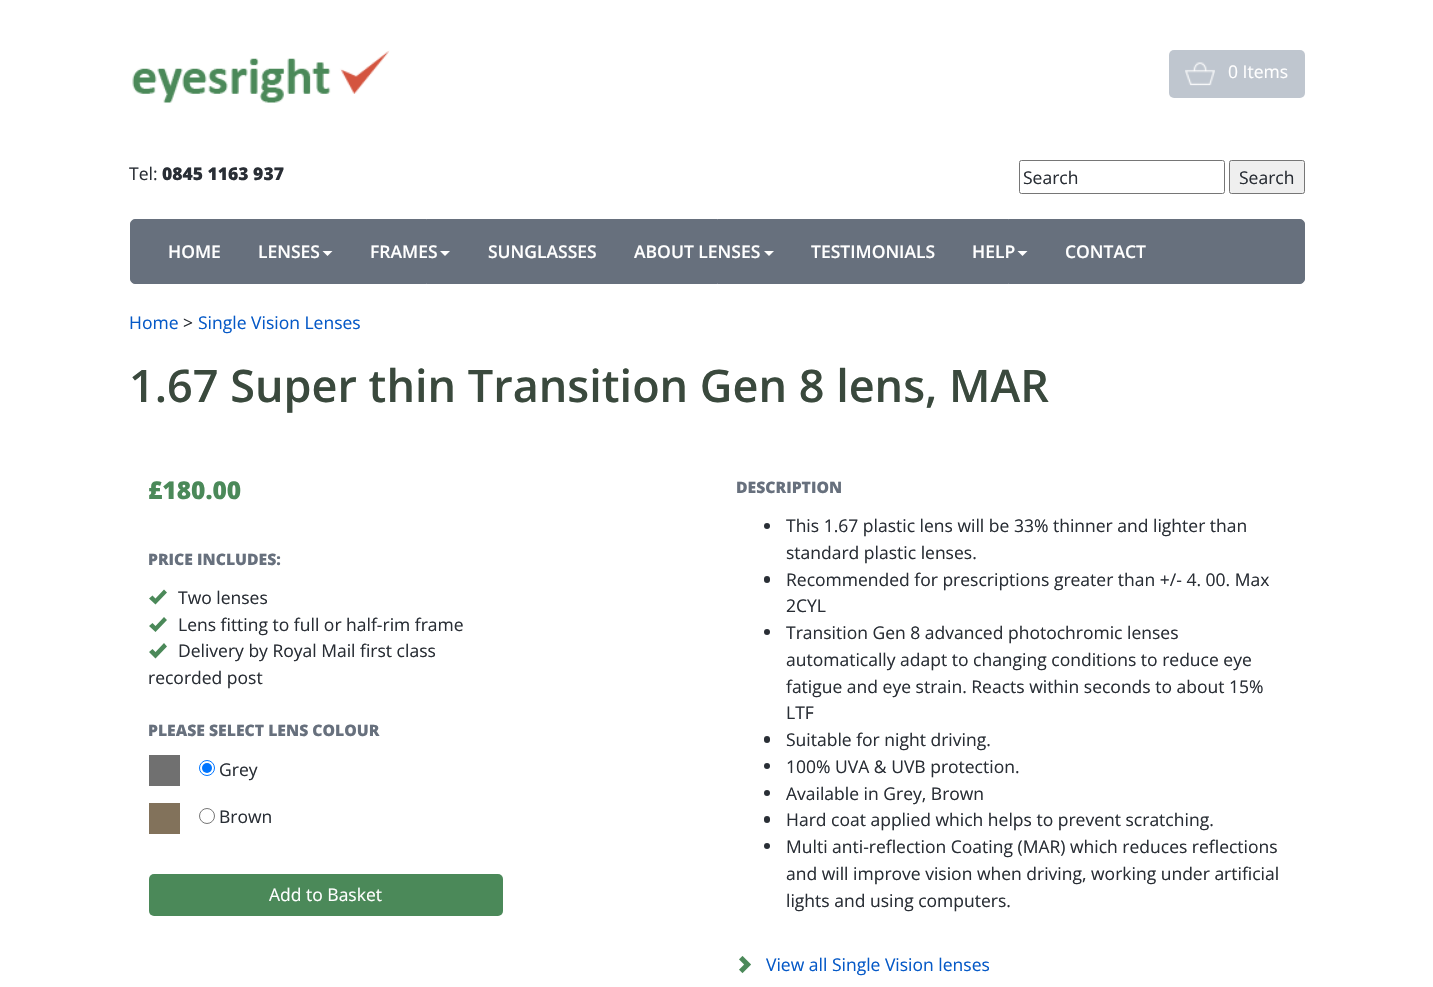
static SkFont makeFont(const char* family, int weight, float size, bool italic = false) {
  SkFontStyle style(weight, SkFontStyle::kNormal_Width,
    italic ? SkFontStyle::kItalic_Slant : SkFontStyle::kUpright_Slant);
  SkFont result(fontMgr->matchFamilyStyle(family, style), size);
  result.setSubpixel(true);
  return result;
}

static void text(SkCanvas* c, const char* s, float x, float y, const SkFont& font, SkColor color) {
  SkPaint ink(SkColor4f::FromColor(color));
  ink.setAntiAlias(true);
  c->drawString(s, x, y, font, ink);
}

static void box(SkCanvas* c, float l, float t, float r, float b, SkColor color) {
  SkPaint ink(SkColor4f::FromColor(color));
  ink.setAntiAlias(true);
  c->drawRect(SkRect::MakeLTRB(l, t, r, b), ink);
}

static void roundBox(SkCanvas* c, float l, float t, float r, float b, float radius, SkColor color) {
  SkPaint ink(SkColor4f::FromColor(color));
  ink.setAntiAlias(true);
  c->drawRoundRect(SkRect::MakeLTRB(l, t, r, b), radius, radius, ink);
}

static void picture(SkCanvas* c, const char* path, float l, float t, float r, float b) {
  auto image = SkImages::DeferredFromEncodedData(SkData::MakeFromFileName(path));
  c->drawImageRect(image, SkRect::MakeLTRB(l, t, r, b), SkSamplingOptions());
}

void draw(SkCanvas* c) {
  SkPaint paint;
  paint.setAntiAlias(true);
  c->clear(0xffffffff);
  picture(c, "img_01.png", 132, 50, 390, 103);
  roundBox(c, 1169, 50, 1305, 98, 5, 0xffbfc6cf);
  picture(c, "img_02.png", 1185, 62, 1215, 86);
  SkFont face1 = makeFont("Open Sans", 400, 17.5f);
  text(c, "0 Items", 1228, 78, face1, 0xffffffff);
  text(c, "Tel:", 129, 180, face1, 0xff292e35);
  SkFont face2 = makeFont("Open Sans", 800, 17.5f);
  text(c, "0845 1163 937", 162, 180, face2, 0xff292e35);
  paint.setStyle(SkPaint::kStroke_Style);
  paint.setStrokeWidth(1);
  paint.setColor(0xff767676);
  c->drawRoundRect(SkRect::MakeLTRB(1019.5f, 160.5f, 1224.5f, 193.5f), 2, 2, paint);
  text(c, "Search", 1023, 184, face1, 0xff292e35);
  paint.setStyle(SkPaint::kFill_Style);
  paint.setColor(0xffefefef);
  c->drawRoundRect(SkRect::MakeLTRB(1229.5f, 160.5f, 1304.5f, 193.5f), 2, 2, paint);
  paint.setStyle(SkPaint::kStroke_Style);
  paint.setColor(0xff767676);
  c->drawRoundRect(SkRect::MakeLTRB(1229.5f, 160.5f, 1304.5f, 193.5f), 2, 2, paint);
  text(c, "Search", 1239, 184, face1, 0xff292e35);
  paint.setStyle(SkPaint::kFill_Style);
  paint.setColor(0xff67707d);
  c->drawRoundRect(SkRect::MakeLTRB(130.5f, 219.5f, 1304.5f, 283.5f), 4.5f, 4.5f, paint);
  paint.setStyle(SkPaint::kStroke_Style);
  c->drawRoundRect(SkRect::MakeLTRB(130.5f, 219.5f, 1304.5f, 283.5f), 4.5f, 4.5f, paint);
  SkFont face3 = makeFont("Open Sans", 600, 17.5f);
  text(c, "HOME", 168, 258, face3, 0xffffffff);
  text(c, "LENSES", 258, 258, face3, 0xffffffff);
  paint.setStyle(SkPaint::kFill_Style);
  paint.setColor(0xffffffff);
  c->drawPath(SkPathBuilder().moveTo(322.5f, 251).lineTo(332.5f, 251).lineTo(327.5f, 256).close().detach(), paint);
  text(c, "FRAMES", 370, 258, face3, 0xffffffff);
  c->drawPath(SkPathBuilder().moveTo(440, 251).lineTo(450, 251).lineTo(445, 256).close().detach(), paint);
  text(c, "SUNGLASSES", 488, 258, face3, 0xffffffff);
  text(c, "ABOUT LENSES", 634, 258, face3, 0xffffffff);
  c->drawPath(SkPathBuilder().moveTo(764, 251).lineTo(774, 251).lineTo(769, 256).close().detach(), paint);
  text(c, "TESTIMONIALS", 811, 258, face3, 0xffffffff);
  text(c, "HELP", 972, 258, face3, 0xffffffff);
  c->drawPath(SkPathBuilder().moveTo(1017.5f, 251).lineTo(1027.5f, 251).lineTo(1022.5f, 256).close().detach(), paint);
  text(c, "CONTACT", 1065, 258, face3, 0xffffffff);
  text(c, "Home", 129, 329, face1, 0xff0559c7);
  text(c, ">", 183, 329, face1, 0xff292e35);
  text(c, "Single Vision Lenses", 198, 329, face1, 0xff0559c7);
  SkFont face4 = makeFont("Open Sans", 600, 45);
  text(c, "1.67 Super thin Transition Gen 8 lens, MAR", 129, 402, face4, 0xff3a493d);
  SkFont face5 = makeFont("Open Sans", 800, 24.5f);
  text(c, "£180.00", 148, 499, face5, 0xff4b8959);
  SkFont face6 = makeFont("Open Sans", 800, 15.75f);
  text(c, "PRICE INCLUDES:", 148, 565, face6, 0xff67707d);
  paint.setColor(0xff4b8959);
  c->drawPath(SkPathBuilder().moveTo(149, 598.5f).lineTo(155.5f, 604.5f).lineTo(167, 592.5f).lineTo(164, 589.5f).lineTo(155.5f, 598.5f).lineTo(152.5f, 595.5f).close().moveTo(149, 626).lineTo(155.5f, 632).lineTo(167, 620).lineTo(164, 617).lineTo(155.5f, 626).lineTo(152.5f, 623).close().detach(), paint);
  text(c, "Two lenses", 178, 604, face1, 0xff292e35);
  text(c, "Lens fitting to full or half-rim frame", 178, 631, face1, 0xff292e35);
  c->drawPath(SkPathBuilder().moveTo(149, 652).lineTo(155.5f, 658.5f).lineTo(167, 646.5f).lineTo(164, 643).lineTo(155.5f, 652).lineTo(152.5f, 649).close().detach(), paint);
  text(c, "Delivery by Royal Mail first class", 178, 657, face1, 0xff292e35);
  text(c, "recorded post", 148, 684, face1, 0xff292e35);
  text(c, "PLEASE SELECT LENS COLOUR", 148, 736, face6, 0xff67707d);
  box(c, 149, 755, 180, 786, 0xff707070);
  paint.setStyle(SkPaint::kStroke_Style);
  paint.setColor(0xff0075ff);
  c->drawCircle(207, 768, 7.5f, paint);
  paint.setStyle(SkPaint::kFill_Style);
  c->drawCircle(207, 768, 5, paint);
  text(c, "Grey", 219, 776, face1, 0xff292e35);
  box(c, 149, 803, 180, 834, 0xff82725b);
  paint.setStyle(SkPaint::kStroke_Style);
  paint.setColor(0xff767676);
  c->drawCircle(207, 816, 7.5f, paint);
  text(c, "Brown", 219, 823, face1, 0xff292e35);
  roundBox(c, 149, 874, 503, 916, 5, 0xff4b8959);
  text(c, "Add to Basket", 269, 901, face1, 0xffffffff);
  text(c, "DESCRIPTION", 736, 493, face6, 0xff67707d);
  paint.setStyle(SkPaint::kFill_Style);
  paint.setColor(0xff292e35);
  c->drawCircle(767, 526, 3, paint);
  text(c, "This 1.67 plastic lens will be 33% thinner and lighter than", 786, 532, face1, 0xff292e35);
  text(c, "standard plastic lenses.", 786, 559, face1, 0xff292e35);
  roundBox(c, 764, 576, 770, 583, 3, 0xff292e35);
  text(c, "Recommended for prescriptions greater than +/- 4. 00. Max", 786, 586, face1, 0xff292e35);
  text(c, "2CYL", 786, 612, face1, 0xff292e35);
  c->drawCircle(767, 632, 3, paint);
  text(c, "Transition Gen 8 advanced photochromic lenses", 786, 639, face1, 0xff292e35);
  text(c, "automatically adapt to changing conditions to reduce eye", 786, 666, face1, 0xff292e35);
  text(c, "fatigue and eye strain. Reacts within seconds to about 15%", 786, 693, face1, 0xff292e35);
  text(c, "LTF", 786, 719, face1, 0xff292e35);
  roundBox(c, 764, 736, 770, 743, 3, 0xff292e35);
  text(c, "Suitable for night driving.", 786, 746, face1, 0xff292e35);
  c->drawCircle(767, 766, 3, paint);
  text(c, "100% UVA & UVB protection.", 786, 773, face1, 0xff292e35);
  c->drawCircle(767, 793, 3, paint);
  text(c, "Available in Grey, Brown", 786, 800, face1, 0xff292e35);
  roundBox(c, 764, 816, 770, 823, 3, 0xff292e35);
  text(c, "Hard coat applied which helps to prevent scratching.", 786, 826, face1, 0xff292e35);
  c->drawCircle(767, 846, 3, paint);
  text(c, "Multi anti-reflection Coating (MAR) which reduces reflections", 786, 853, face1, 0xff292e35);
  text(c, "and will improve vision when driving, working under artificial", 786, 880, face1, 0xff292e35);
  text(c, "lights and using computers.", 786, 907, face1, 0xff292e35);
  picture(c, "img_03.png", 739, 956, 751, 974);
  text(c, "View all Single Vision lenses", 766, 971, face1, 0xff0559c7);
}
